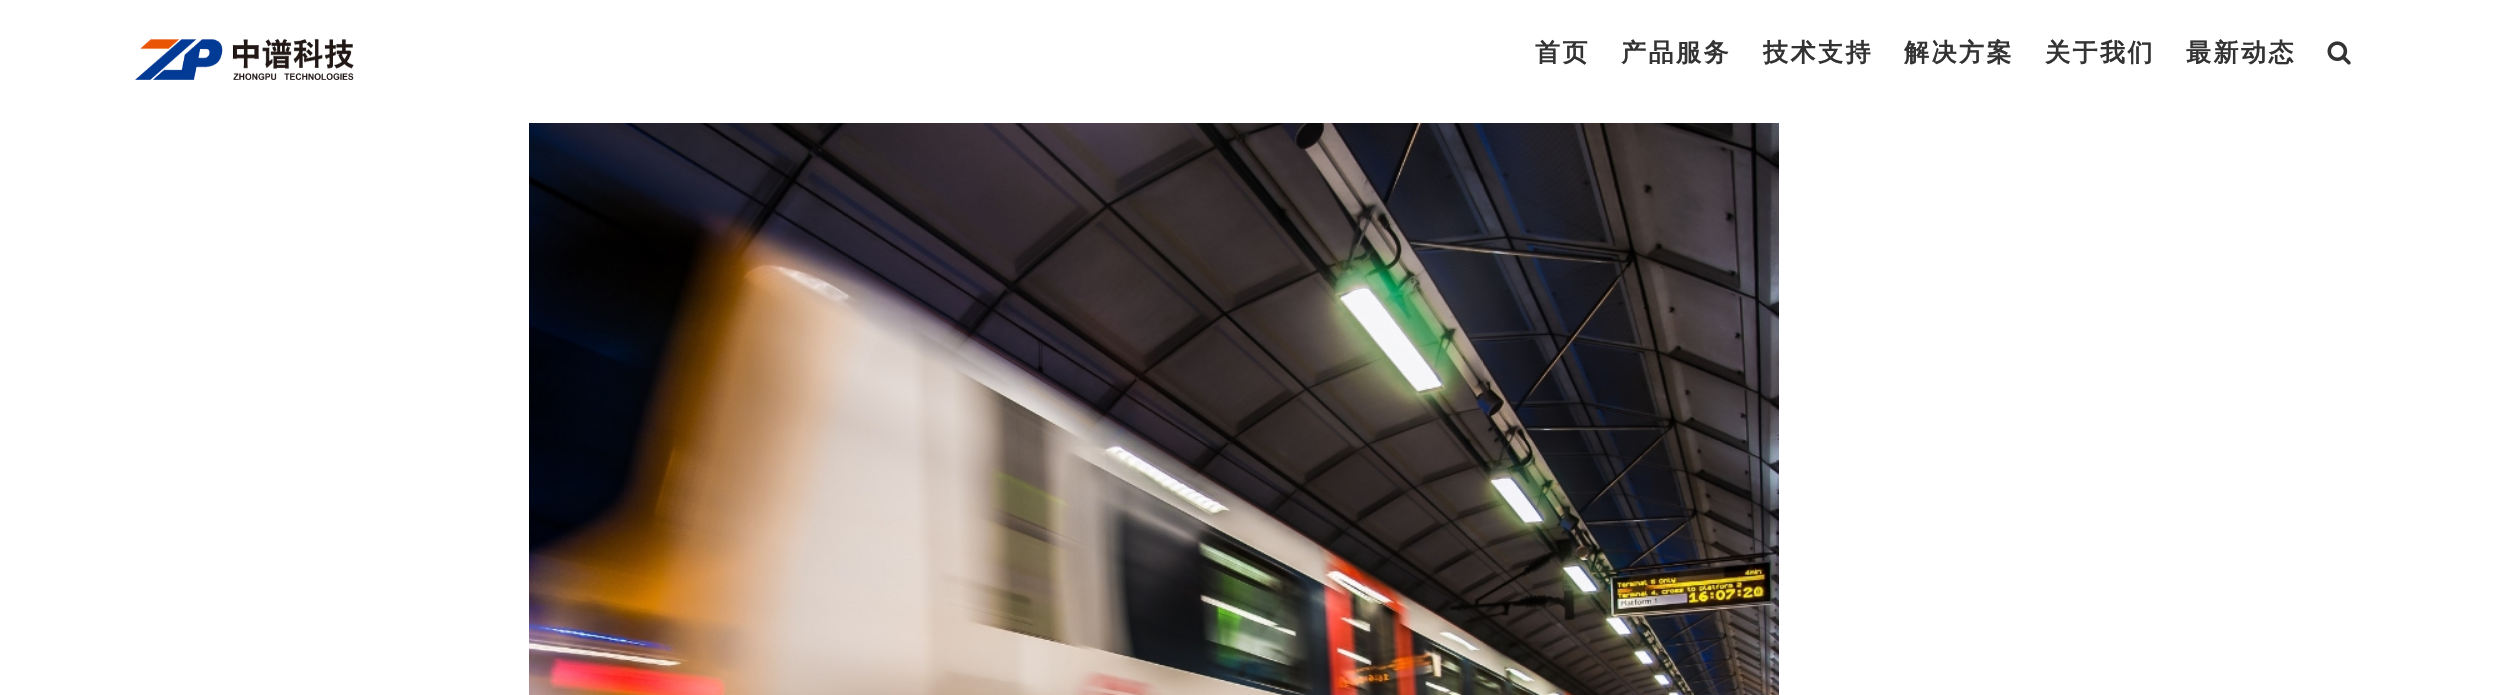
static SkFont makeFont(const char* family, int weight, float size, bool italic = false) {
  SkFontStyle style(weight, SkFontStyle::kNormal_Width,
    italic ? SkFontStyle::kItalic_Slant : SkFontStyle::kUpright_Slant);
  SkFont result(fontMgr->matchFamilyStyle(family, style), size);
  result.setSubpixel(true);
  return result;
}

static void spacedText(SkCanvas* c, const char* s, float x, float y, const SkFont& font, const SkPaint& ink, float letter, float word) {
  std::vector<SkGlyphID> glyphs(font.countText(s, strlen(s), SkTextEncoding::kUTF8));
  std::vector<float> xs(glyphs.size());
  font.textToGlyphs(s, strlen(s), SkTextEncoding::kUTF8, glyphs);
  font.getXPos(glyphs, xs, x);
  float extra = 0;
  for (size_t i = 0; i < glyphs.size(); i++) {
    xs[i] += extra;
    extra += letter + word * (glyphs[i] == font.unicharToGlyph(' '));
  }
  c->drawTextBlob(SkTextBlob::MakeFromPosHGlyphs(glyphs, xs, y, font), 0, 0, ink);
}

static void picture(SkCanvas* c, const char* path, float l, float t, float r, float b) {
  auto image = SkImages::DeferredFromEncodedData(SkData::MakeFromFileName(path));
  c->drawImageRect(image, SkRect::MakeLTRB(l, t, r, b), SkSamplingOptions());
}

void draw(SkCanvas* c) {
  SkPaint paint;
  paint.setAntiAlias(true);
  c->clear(0xffffffff);
  picture(c, "img_01.png", 135, 38, 354, 80);
  SkFont face1 = makeFont("WenQuanYi Zen Hei", 700, 25);
  paint.setColor(0xff333333);
  spacedText(c, "首页", 1535, 61, face1, paint, 2.5f, 0);
  spacedText(c, "产品服务", 1621, 61, face1, paint, 2.5f, 0);
  spacedText(c, "技术支持", 1763, 61, face1, paint, 2.5f, 0);
  spacedText(c, "解决方案", 1904, 61, face1, paint, 2.5f, 0);
  spacedText(c, "关于我们", 2045, 61, face1, paint, 2.5f, 0);
  spacedText(c, "最新动态", 2186, 61, face1, paint, 2.5f, 0);
  picture(c, "img_02.png", 2327, 41, 2351, 65);
  picture(c, "img_03.png", 529, 123, 1779, 695);
}
